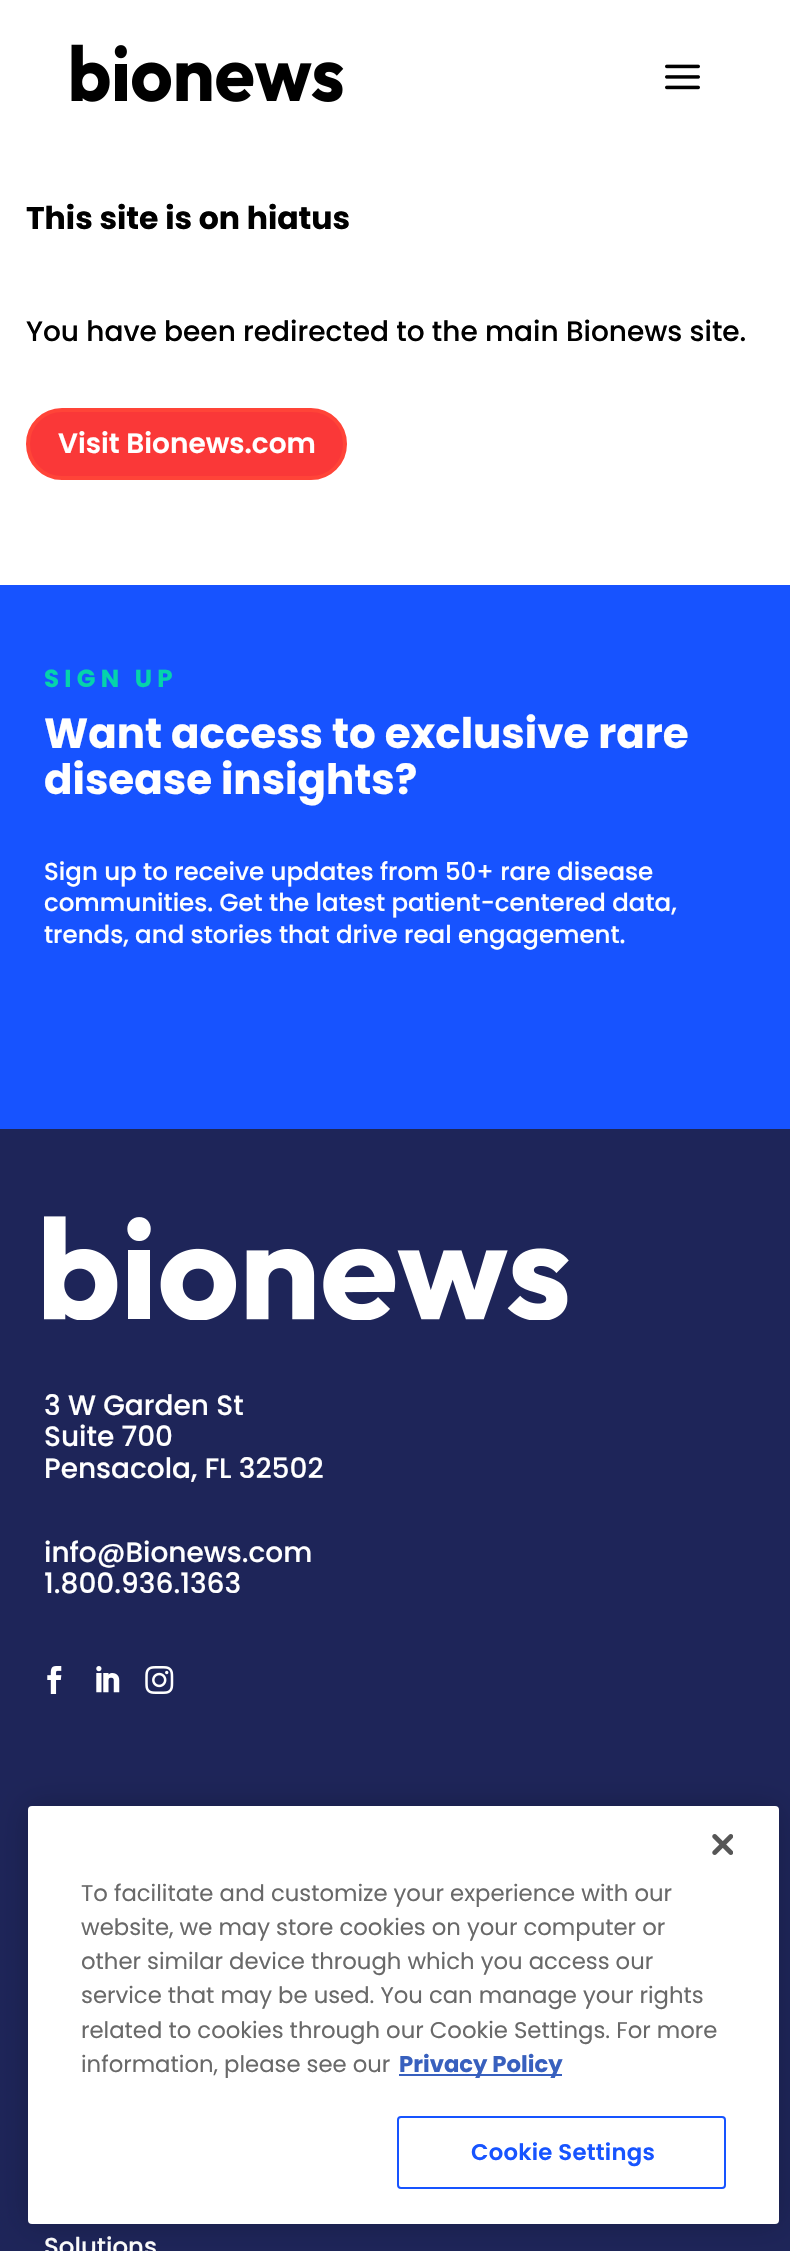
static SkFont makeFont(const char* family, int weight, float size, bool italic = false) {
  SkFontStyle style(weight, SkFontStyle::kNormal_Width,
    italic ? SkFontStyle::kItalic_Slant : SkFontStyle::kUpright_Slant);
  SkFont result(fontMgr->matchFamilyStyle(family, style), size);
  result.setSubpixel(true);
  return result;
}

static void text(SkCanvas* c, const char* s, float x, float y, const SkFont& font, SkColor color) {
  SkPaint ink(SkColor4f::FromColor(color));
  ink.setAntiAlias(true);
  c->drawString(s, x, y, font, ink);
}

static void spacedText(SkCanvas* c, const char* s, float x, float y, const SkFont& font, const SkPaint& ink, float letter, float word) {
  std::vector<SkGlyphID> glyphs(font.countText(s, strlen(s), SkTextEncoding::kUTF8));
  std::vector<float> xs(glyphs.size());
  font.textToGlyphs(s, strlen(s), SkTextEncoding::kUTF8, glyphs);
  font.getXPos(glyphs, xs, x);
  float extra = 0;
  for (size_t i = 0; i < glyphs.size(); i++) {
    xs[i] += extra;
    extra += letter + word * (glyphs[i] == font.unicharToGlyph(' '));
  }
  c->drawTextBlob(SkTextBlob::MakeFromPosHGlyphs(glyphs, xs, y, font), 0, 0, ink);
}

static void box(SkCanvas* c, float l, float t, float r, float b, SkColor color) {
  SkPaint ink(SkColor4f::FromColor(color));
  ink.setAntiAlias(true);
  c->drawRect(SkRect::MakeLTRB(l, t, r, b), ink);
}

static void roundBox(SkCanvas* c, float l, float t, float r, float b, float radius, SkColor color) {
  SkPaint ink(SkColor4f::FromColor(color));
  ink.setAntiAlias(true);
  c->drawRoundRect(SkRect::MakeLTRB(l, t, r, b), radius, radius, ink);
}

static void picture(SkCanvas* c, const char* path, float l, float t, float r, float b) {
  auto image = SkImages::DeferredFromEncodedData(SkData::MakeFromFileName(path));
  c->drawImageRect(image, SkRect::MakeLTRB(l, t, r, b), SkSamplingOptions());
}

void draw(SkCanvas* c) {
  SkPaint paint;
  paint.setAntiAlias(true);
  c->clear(0xffffffff);
  picture(c, "img_01.png", 71, 44, 344, 102);
  picture(c, "img_02.png", 665, 64, 700, 90);
  SkFont face1 = makeFont("Poppins", 700, 31.5f);
  text(c, "This site is on hiatus", 26, 229, face1, 0xff000000);
  SkFont face2 = makeFont("Poppins", 500, 28);
  text(c, "You have been redirected to the main Bionews site.", 26, 341, face2, 0xff000000);
  paint.setColor(0xfffa3838);
  c->drawRoundRect(SkRect::MakeLTRB(28, 410, 345, 478), 34, 34, paint);
  paint.setStyle(SkPaint::kStroke_Style);
  paint.setStrokeWidth(4);
  paint.setColor(0xffff4438);
  c->drawRoundRect(SkRect::MakeLTRB(28, 410, 345, 478), 34, 34, paint);
  SkFont face3 = makeFont("Poppins", 600, 28);
  text(c, "Visit Bionews.com", 58, 453, face3, 0xffffffff);
  box(c, 0, 585, 790, 1129, 0xff1753ff);
  SkFont face4 = makeFont("Poppins", 700, 24.5f);
  paint.setStyle(SkPaint::kFill_Style);
  paint.setColor(0xff05d3ab);
  spacedText(c, "SIGN UP", 44, 687, face4, paint, 5.25f, 0);
  SkFont face5 = makeFont("Poppins", 700, 42);
  text(c, "Want access to exclusive rare", 44, 748, face5, 0xffffffff);
  text(c, "disease insights?", 44, 794, face5, 0xffffffff);
  SkFont face6 = makeFont("Poppins", 500, 24.5f);
  text(c, "Sign up to receive updates from 50+ rare disease", 44, 880, face6, 0xffffffff);
  text(c, "communities. Get the latest patient-centered data,", 44, 911, face6, 0xffffffff);
  text(c, "trends, and stories that drive real engagement.", 44, 943, face6, 0xffffffff);
  box(c, 0, 1129, 790, 2251, 0xff1e2559);
  picture(c, "img_03.png", 44, 1216, 569, 1320);
  text(c, "3 W Garden St", 44, 1415, face2, 0xffffffff);
  text(c, "Suite 700", 44, 1446, face2, 0xffffffff);
  text(c, "Pensacola, FL 32502", 44, 1478, face2, 0xffffffff);
  text(c, "info@Bionews.com", 44, 1562, face2, 0xffffffff);
  text(c, "1.800.936.1363", 44, 1593, face2, 0xffffffff);
  picture(c, "img_04.png", 47, 1666, 62, 1694);
  picture(c, "img_05.png", 96, 1666, 120, 1693);
  picture(c, "img_06.png", 145, 1666, 174, 1694);
  text(c, "Solutions", 44, 2255, face6, 0xffffffff);
  paint.setColor(0x33000000);
  paint.setMaskFilter(SkMaskFilter::MakeBlur(kNormal_SkBlurStyle, 16));
  c->drawRoundRect(SkRect::MakeLTRB(28, 1806, 779, 2224), 4, 4, paint);
  paint.setMaskFilter(nullptr);
  roundBox(c, 28, 1806, 779, 2224, 4, 0xffffffff);
  picture(c, "img_07.png", 712, 1834, 733, 1855);
  SkFont face7 = makeFont("Poppins", 400, 22.75f);
  text(c, "To facilitate and customize your experience with our", 81, 1901, face7, 0xff696969);
  text(c, "website, we may store cookies on your computer or", 81, 1935, face7, 0xff696969);
  text(c, "other similar device through which you access our", 81, 1969, face7, 0xff696969);
  text(c, "service that may be used. You can manage your rights", 81, 2003, face7, 0xff696969);
  text(c, "related to cookies through our Cookie Settings. For more", 81, 2038, face7, 0xff696969);
  text(c, "information, please see our", 81, 2072, face7, 0xff696969);
  box(c, 399, 2074, 562, 2076, 0xff3860be);
  SkFont face8 = makeFont("Poppins", 700, 22.75f);
  text(c, "Privacy Policy", 399, 2072, face8, 0xff3860be);
  paint.setStyle(SkPaint::kStroke_Style);
  paint.setStrokeWidth(2);
  paint.setColor(0xff1754ff);
  c->drawRoundRect(SkRect::MakeLTRB(398, 2117, 725, 2188), 3, 3, paint);
  SkFont face9 = makeFont("Poppins", 600, 22.75f);
  paint.setStyle(SkPaint::kFill_Style);
  spacedText(c, "Cookie Settings", 471, 2160, face9, paint, 0.25f, 0);
}
